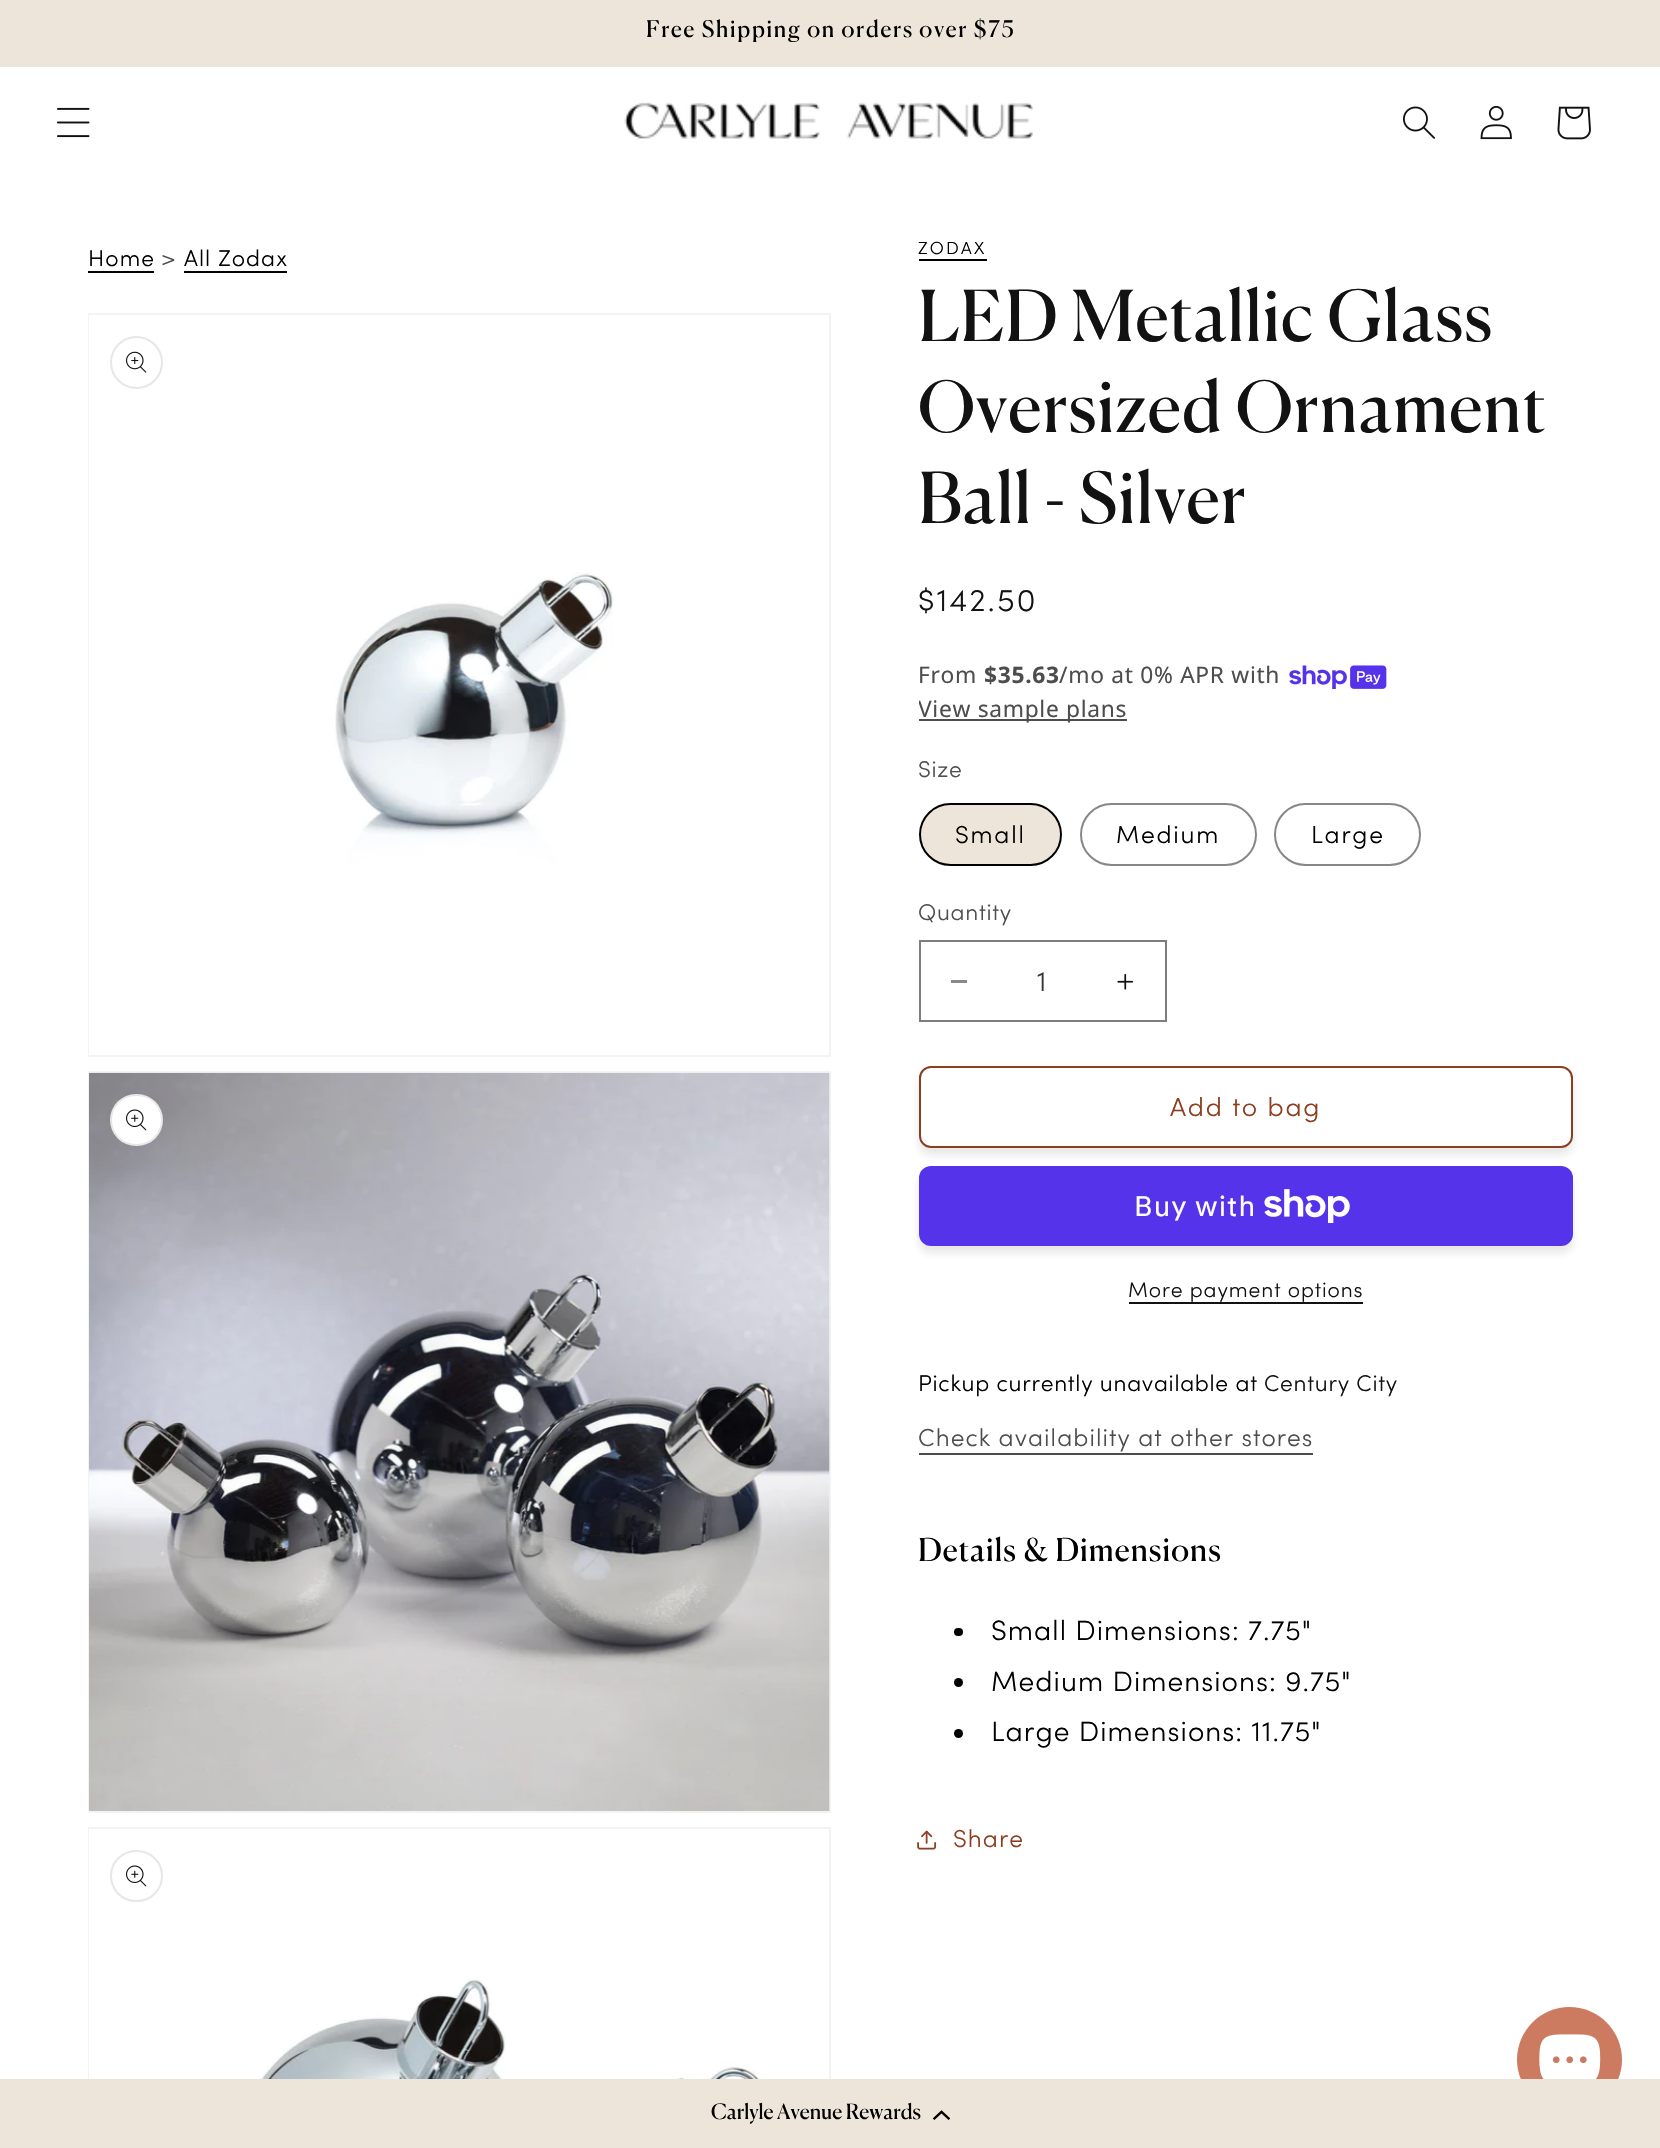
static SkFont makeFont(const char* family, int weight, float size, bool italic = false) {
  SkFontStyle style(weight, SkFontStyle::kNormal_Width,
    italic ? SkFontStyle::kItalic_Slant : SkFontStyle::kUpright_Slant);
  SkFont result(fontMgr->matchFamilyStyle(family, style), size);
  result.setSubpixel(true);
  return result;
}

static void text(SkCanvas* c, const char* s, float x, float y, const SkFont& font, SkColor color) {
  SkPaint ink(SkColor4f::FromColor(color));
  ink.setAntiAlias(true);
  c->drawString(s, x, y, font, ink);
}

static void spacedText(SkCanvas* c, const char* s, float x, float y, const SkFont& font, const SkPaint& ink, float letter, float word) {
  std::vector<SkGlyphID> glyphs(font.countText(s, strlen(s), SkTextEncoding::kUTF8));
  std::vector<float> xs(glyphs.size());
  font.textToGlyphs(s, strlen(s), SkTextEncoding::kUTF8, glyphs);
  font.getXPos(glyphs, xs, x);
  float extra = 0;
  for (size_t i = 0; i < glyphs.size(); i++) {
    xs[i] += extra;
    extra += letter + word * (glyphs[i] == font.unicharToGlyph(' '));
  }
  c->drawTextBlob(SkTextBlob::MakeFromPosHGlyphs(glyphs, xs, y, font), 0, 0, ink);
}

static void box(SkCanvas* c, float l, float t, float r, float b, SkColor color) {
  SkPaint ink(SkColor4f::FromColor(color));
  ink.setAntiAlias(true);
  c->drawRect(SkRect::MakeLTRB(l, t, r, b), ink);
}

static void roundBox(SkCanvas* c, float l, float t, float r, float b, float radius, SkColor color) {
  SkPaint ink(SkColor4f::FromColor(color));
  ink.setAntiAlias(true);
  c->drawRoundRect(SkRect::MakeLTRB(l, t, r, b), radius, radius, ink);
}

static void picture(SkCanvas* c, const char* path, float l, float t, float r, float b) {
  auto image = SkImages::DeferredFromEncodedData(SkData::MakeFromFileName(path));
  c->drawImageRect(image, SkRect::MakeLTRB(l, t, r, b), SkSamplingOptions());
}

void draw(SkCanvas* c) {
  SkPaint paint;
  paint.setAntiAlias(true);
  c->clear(0xffffffff);
  box(c, 0, 0, 1660, 67, 0xffeee5da);
  SkFont face1 = makeFont("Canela", 400, 22.75f);
  paint.setColor(0xff000000);
  spacedText(c, "Free Shipping on orders over $75", 646, 37, face1, paint, 1.75f, 0);
  picture(c, "img_01.png", 57, 107, 90, 138);
  picture(c, "img_02.png", 624, 102, 1033, 139);
  picture(c, "img_03.png", 1403, 106, 1435, 139);
  picture(c, "img_04.png", 1480, 105, 1512, 140);
  picture(c, "img_05.png", 1557, 106, 1591, 140);
  SkFont face2 = makeFont("Sofia", 300, 22.75f);
  spacedText(c, "Home", 88, 266, face2, paint, 1.05f, 0);
  box(c, 88, 271, 154, 273, 0xff000000);
  paint.setColor(0xff4d4d4d);
  spacedText(c, ">", 161, 266, face2, paint, 1.05f, 0);
  paint.setColor(0xff000000);
  spacedText(c, "All Zodax", 184, 266, face2, paint, 1.05f, 0);
  box(c, 184, 271, 287, 273, 0xff000000);
  paint.setStyle(SkPaint::kStroke_Style);
  paint.setStrokeWidth(2);
  paint.setColor(0xfff3f3f3);
  c->drawRect(SkRect::MakeLTRB(89, 314, 830, 1056), paint);
  picture(c, "img_06.png", 89, 315, 613, 1055);
  paint.setColor(0xffe7e7e7);
  c->drawCircle(136.5f, 362.5f, 25.5f, paint);
  picture(c, "img_07.png", 126, 351, 147, 373);
  paint.setColor(0xfff3f3f3);
  c->drawRect(SkRect::MakeLTRB(89, 1072, 830, 1812), paint);
  picture(c, "img_08.png", 89, 1072, 830, 1811);
  roundBox(c, 110, 1094, 163, 1146, 26, 0xffffffff);
  paint.setColor(0x1a121212);
  c->drawRoundRect(SkRect::MakeLTRB(111, 1095, 162, 1145), 25, 25, paint);
  picture(c, "img_09.png", 126, 1109, 147, 1131);
  paint.setColor(0xfff3f3f3);
  c->drawRect(SkRect::MakeLTRB(89, 1828, 830, 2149), paint);
  picture(c, "img_10.png", 89, 1829, 767, 2079);
  paint.setColor(0xffe7e7e7);
  c->drawRoundRect(SkRect::MakeLTRB(111, 1851, 162, 1901), 25, 25, paint);
  picture(c, "img_09.png", 126, 1865, 147, 1887);
  SkFont face3 = makeFont("Sofia", 300, 17.5f);
  paint.setStyle(SkPaint::kFill_Style);
  paint.setColor(0xff000000);
  spacedText(c, "ZODAX", 918, 254, face3, paint, 2.25f, 0);
  box(c, 919, 259, 987, 261, 0xff000000);
  SkFont face4 = makeFont("Canela", 400, 70);
  paint.setColor(0xff121212);
  spacedText(c, "LED Metallic Glass", 918, 341, face4, paint, 1.05f, 0);
  spacedText(c, "Oversized Ornament", 918, 432, face4, paint, 1.05f, 0);
  spacedText(c, "Ball - Silver", 918, 523, face4, paint, 1.05f, 0);
  SkFont face5 = makeFont("Sofia", 300, 31.5f);
  spacedText(c, "$142.50", 918, 611, face5, paint, 2.25f, 0);
  SkFont face6 = makeFont("Noto Sans", 400, 22.75f);
  paint.setColor(0xff4d4d4d);
  spacedText(c, "From", 918, 683, face6, paint, 0.7f, 0);
  SkFont face7 = makeFont("Noto Sans", 700, 22.75f);
  spacedText(c, "$35.63", 984, 683, face7, paint, 0.7f, 0);
  spacedText(c, "/mo at 0% APR with", 1059, 683, face6, paint, 0.7f, 0);
  picture(c, "img_11.png", 1289, 665, 1387, 689);
  box(c, 919, 719, 1127, 721, 0xff4d4d4d);
  c->save();
  c->clipRect(SkRect::MakeLTRB(919, 693, 1127, 726));
  spacedText(c, "View sample plans", 918, 717, face6, paint, 0.7f, 0);
  c->restore();
  spacedText(c, "Size", 918, 777, face2, paint, 0.7f, 0);
  paint.setColor(0xffeee5da);
  c->drawRoundRect(SkRect::MakeLTRB(920, 804, 1061, 865), 30.5f, 30.5f, paint);
  paint.setStyle(SkPaint::kStroke_Style);
  paint.setColor(0xff000000);
  c->drawRoundRect(SkRect::MakeLTRB(920, 804, 1061, 865), 30.5f, 30.5f, paint);
  SkFont face8 = makeFont("Sofia", 300, 24.5f);
  paint.setStyle(SkPaint::kFill_Style);
  spacedText(c, "Small", 955, 843, face8, paint, 1.75f, 0);
  paint.setStyle(SkPaint::kStroke_Style);
  paint.setColor(0xff878787);
  c->drawRoundRect(SkRect::MakeLTRB(1081, 804, 1256, 865), 30.5f, 30.5f, paint);
  paint.setStyle(SkPaint::kFill_Style);
  paint.setColor(0xff000000);
  spacedText(c, "Medium", 1116, 843, face8, paint, 1.75f, 0);
  paint.setStyle(SkPaint::kStroke_Style);
  paint.setColor(0xff878787);
  c->drawRoundRect(SkRect::MakeLTRB(1275, 804, 1420, 865), 30.5f, 30.5f, paint);
  paint.setStyle(SkPaint::kFill_Style);
  paint.setColor(0xff000000);
  spacedText(c, "Large", 1311, 843, face8, paint, 1.75f, 0);
  paint.setColor(0xff4d4d4d);
  spacedText(c, "Quantity", 918, 920, face2, paint, 0.7f, 0);
  box(c, 951, 980, 967, 983, 0xff898989);
  picture(c, "img_12.png", 1117, 973, 1134, 990);
  paint.setStyle(SkPaint::kStroke_Style);
  paint.setColor(0xff7d7d7d);
  c->drawRect(SkRect::MakeLTRB(920, 941, 1166, 1021), paint);
  SkFont face9 = makeFont("Sofia", 300, 28);
  text(c, "1", 1037, 991, face9, 0xff363636);
  paint.setStyle(SkPaint::kFill_Style);
  paint.setColor(0x1a121212);
  paint.setMaskFilter(SkMaskFilter::MakeBlur(kNormal_SkBlurStyle, 4.5f));
  c->drawRoundRect(SkRect::MakeLTRB(919, 1073, 1573, 1155), 12, 12, paint);
  paint.setMaskFilter(nullptr);
  roundBox(c, 919, 1066, 1573, 1148, 12, 0xffffffff);
  paint.setStyle(SkPaint::kStroke_Style);
  paint.setColor(0xffffffff);
  c->drawRoundRect(SkRect::MakeLTRB(920, 1067, 1572, 1147), 11, 11, paint);
  paint.setColor(0xff8d3d20);
  c->drawRoundRect(SkRect::MakeLTRB(920, 1067, 1572, 1147), 11, 11, paint);
  SkFont face10 = makeFont("Sofia", 300, 26.25f);
  paint.setStyle(SkPaint::kFill_Style);
  spacedText(c, "Add to bag", 1170, 1116, face10, paint, 1.75f, 0);
  paint.setColor(0x1a121212);
  paint.setMaskFilter(SkMaskFilter::MakeBlur(kNormal_SkBlurStyle, 4.5f));
  c->drawRoundRect(SkRect::MakeLTRB(919, 1173, 1573, 1253), 12, 12, paint);
  paint.setMaskFilter(nullptr);
  roundBox(c, 919, 1166, 1573, 1246, 12, 0xff5433eb);
  SkFont face11 = makeFont("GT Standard", 400, 28);
  paint.setColor(0xffffffff);
  spacedText(c, "Buy with", 1134, 1216, face11, paint, 1.05f, 0);
  picture(c, "img_13.png", 1264, 1189, 1350, 1223);
  SkFont face12 = makeFont("Sofia", 300, 21);
  paint.setColor(0xff121212);
  spacedText(c, "More payment options", 1128, 1297, face12, paint, 0.9f, 0);
  box(c, 1129, 1302, 1363, 1304, 0xff121212);
  paint.setColor(0xff000000);
  spacedText(c, "Pickup currently unavailable at", 918, 1391, face2, paint, 0.7f, 0);
  paint.setColor(0xff121212);
  spacedText(c, "Century City", 1264, 1391, face2, paint, 0.7f, 0);
  paint.setColor(0xff4d4d4d);
  spacedText(c, "Check availability at other stores", 918, 1446, face8, paint, 1.05f, 0);
  box(c, 919, 1453, 1313, 1455, 0xff4d4d4d);
  SkFont face13 = makeFont("Canela", 400, 31.5f);
  paint.setColor(0xff000000);
  spacedText(c, "Details & Dimensions", 918, 1561, face13, paint, 1.05f, 0);
  roundBox(c, 954, 1628, 963, 1636, 4, 0xff000000);
  spacedText(c, "Small Dimensions: 7.75\"", 991, 1640, face9, paint, 1.05f, 0);
  c->drawCircle(958.5f, 1682.5f, 4.5f, paint);
  spacedText(c, "Medium Dimensions: 9.75\"", 991, 1691, face9, paint, 1.05f, 0);
  c->drawCircle(958.5f, 1733.5f, 4.5f, paint);
  spacedText(c, "Large Dimensions: 11.75\"", 991, 1741, face9, paint, 1.05f, 0);
  picture(c, "img_14.png", 917, 1830, 937, 1850);
  paint.setColor(0xff8d3d20);
  spacedText(c, "Share", 953, 1847, face8, paint, 1.05f, 0);
  paint.setColor(0xffcc7b60);
  c->drawCircle(1569.5f, 2059.5f, 52.5f, paint);
  box(c, 0, 2079, 1660, 2148, 0xffeee5da);
  SkFont face14 = makeFont("Canela", 400, 21);
  text(c, "Carlyle Avenue Rewards", 711, 2119, face14, 0xff000000);
  picture(c, "img_15.png", 933, 2110, 950, 2120);
  picture(c, "img_16.png", 1539, 2034, 1601, 2079);
}
